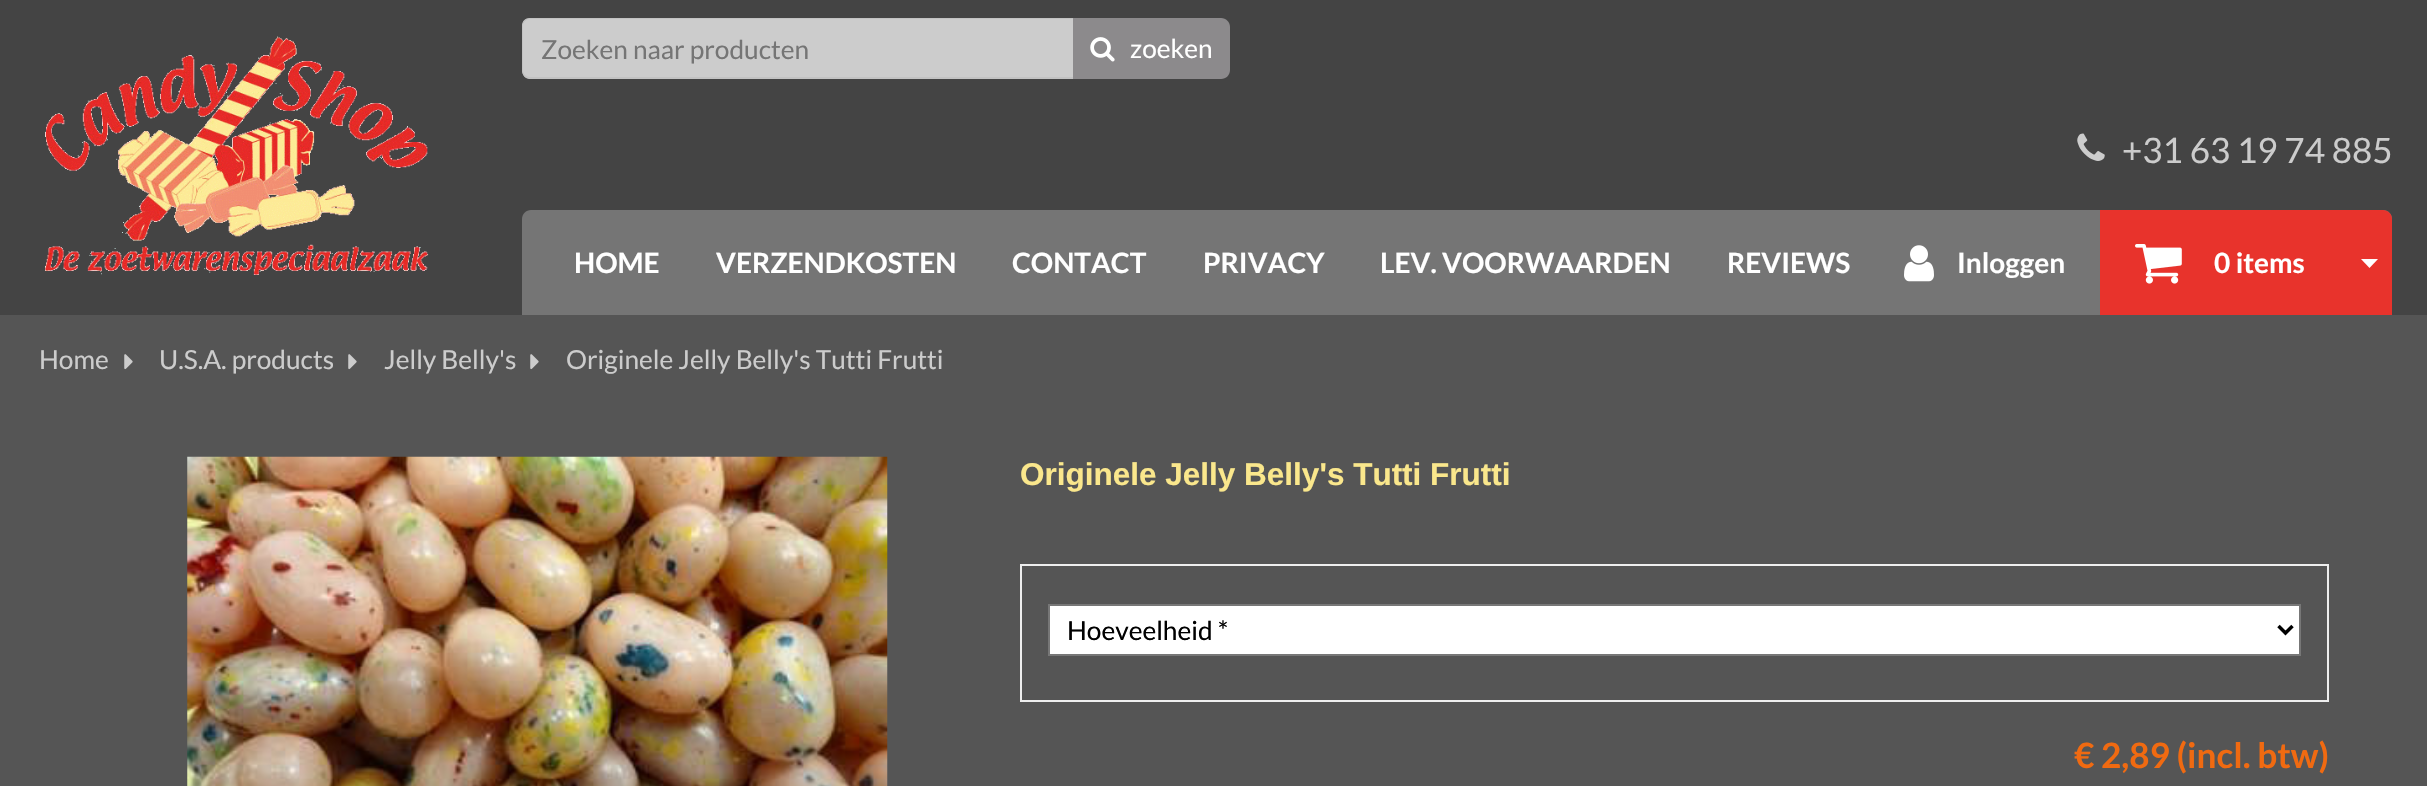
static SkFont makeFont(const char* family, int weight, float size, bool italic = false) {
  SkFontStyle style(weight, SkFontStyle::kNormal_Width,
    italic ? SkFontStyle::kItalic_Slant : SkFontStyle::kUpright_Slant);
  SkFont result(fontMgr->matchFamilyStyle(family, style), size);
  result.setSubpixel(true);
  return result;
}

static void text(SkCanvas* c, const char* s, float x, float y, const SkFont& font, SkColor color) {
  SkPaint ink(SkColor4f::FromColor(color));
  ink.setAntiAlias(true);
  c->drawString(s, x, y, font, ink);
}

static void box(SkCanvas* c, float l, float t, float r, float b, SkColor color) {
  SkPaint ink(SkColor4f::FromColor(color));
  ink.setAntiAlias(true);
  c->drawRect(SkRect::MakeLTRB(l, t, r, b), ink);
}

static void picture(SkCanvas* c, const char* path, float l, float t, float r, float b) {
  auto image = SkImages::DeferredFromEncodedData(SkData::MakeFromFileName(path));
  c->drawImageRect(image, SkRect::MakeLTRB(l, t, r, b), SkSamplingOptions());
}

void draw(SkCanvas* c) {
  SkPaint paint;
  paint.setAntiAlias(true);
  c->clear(0xff444444);
  picture(c, "img_01.png", 45, 36, 429, 275);
  paint.setColor(0xffcccccc);
  c->drawPath(SkPathBuilder().moveTo(531, 18).lineTo(1073, 18).lineTo(1073, 79).lineTo(531, 79).cubicTo(526, 79, 522, 75, 522, 70).lineTo(522, 27).cubicTo(522, 22, 526, 18, 531, 18).close().detach(), paint);
  paint.setColor(0xffc2c2c2);
  c->drawPath(SkPathBuilder(SkPathFillType::kEvenOdd).moveTo(530, 18).lineTo(1073, 18).lineTo(1073, 79).lineTo(530, 79).cubicTo(525, 79, 522, 75, 522, 70).lineTo(522, 26).cubicTo(522, 21, 525, 18, 530, 18).close().moveTo(530, 19).lineTo(1073, 19).lineTo(1073, 77).lineTo(530, 77).cubicTo(526, 77, 523, 74, 523, 70).lineTo(523, 26).cubicTo(523, 22, 526, 19, 530, 19).close().detach(), paint);
  SkFont face1 = makeFont("Lato", 400, 26.25f);
  text(c, "Zoeken naar producten", 541, 59, face1, 0xff757575);
  paint.setColor(0xff8c8a8c);
  c->drawPath(SkPathBuilder().moveTo(1073, 18).lineTo(1221, 18).cubicTo(1226, 18, 1230, 22, 1230, 27).lineTo(1230, 70).cubicTo(1230, 75, 1226, 79, 1221, 79).lineTo(1073, 79).close().detach(), paint);
  picture(c, "img_02.png", 1090, 37, 1115, 62);
  text(c, "zoeken", 1130, 58, face1, 0xffffffff);
  picture(c, "img_03.png", 2077, 133, 2105, 161);
  SkFont face2 = makeFont("Lato", 400, 35);
  text(c, "+31 63 19 74 885", 2122, 163, face2, 0xffcccccc);
  paint.setColor(0xff757575);
  c->drawPath(SkPathBuilder().moveTo(531, 210).lineTo(2383, 210).cubicTo(2388, 210, 2392, 214, 2392, 219).lineTo(2392, 315).lineTo(522, 315).lineTo(522, 219).cubicTo(522, 214, 526, 210, 531, 210).close().detach(), paint);
  SkFont face3 = makeFont("Lato", 700, 28);
  text(c, "HOME", 574, 273, face3, 0xffffffff);
  text(c, "VERZENDKOSTEN", 716, 273, face3, 0xffffffff);
  text(c, "CONTACT", 1012, 273, face3, 0xffffffff);
  text(c, "PRIVACY", 1203, 273, face3, 0xffffffff);
  text(c, "LEV. VOORWAARDEN", 1380, 273, face3, 0xffffffff);
  text(c, "REVIEWS", 1727, 273, face3, 0xffffffff);
  picture(c, "img_04.png", 1904, 245, 1934, 282);
  text(c, "Inloggen", 1957, 273, face3, 0xffffffff);
  paint.setColor(0xffe8332c);
  c->drawPath(SkPathBuilder().moveTo(2100, 210).lineTo(2383, 210).cubicTo(2388, 210, 2392, 214, 2392, 219).lineTo(2392, 315).lineTo(2100, 315).close().detach(), paint);
  picture(c, "img_05.png", 2135, 244, 2182, 284);
  text(c, "0 items", 2214, 273, face3, 0xffffffff);
  paint.setColor(0xffffffff);
  c->drawPath(SkPathBuilder().moveTo(2361, 259).lineTo(2378, 259).lineTo(2369.5f, 268).close().detach(), paint);
  box(c, 0, 315, 2427, 786, 0xff555555);
  text(c, "Home", 39, 369, face1, 0xffcccccc);
  picture(c, "img_06.png", 124, 354, 133, 370);
  text(c, "U.S.A. products", 159, 369, face1, 0xffcccccc);
  picture(c, "img_06.png", 348, 354, 357, 370);
  text(c, "Jelly Belly's", 384, 369, face1, 0xffcccccc);
  picture(c, "img_06.png", 530, 354, 539, 370);
  text(c, "Originele Jelly Belly's Tutti Frutti", 566, 369, face1, 0xffcccccc);
  picture(c, "img_07.png", 187, 456, 888, 786);
  SkFont face4 = makeFont("Liberation Sans", 700, 31.5f);
  text(c, "Originele Jelly Belly's Tutti Frutti", 1020, 485, face4, 0xfffae78c);
  paint.setStyle(SkPaint::kStroke_Style);
  paint.setStrokeWidth(2);
  paint.setColor(0xffeeeeee);
  c->drawRect(SkRect::MakeLTRB(1021, 565, 2328, 701), paint);
  paint.setStyle(SkPaint::kFill_Style);
  paint.setColor(0xffffffff);
  c->drawRect(SkRect::MakeLTRB(1049, 605, 2300, 655), paint);
  paint.setStyle(SkPaint::kStroke_Style);
  paint.setColor(0xff777777);
  c->drawRect(SkRect::MakeLTRB(1049, 605, 2300, 655), paint);
  paint.setStrokeWidth(3.5f);
  paint.setColor(0xff000000);
  c->drawPath(SkPathBuilder().moveTo(2278.5f, 626).lineTo(2285.5f, 633).lineTo(2292.5f, 626).detach(), paint);
  text(c, "Hoeveelheid *", 1067, 640, face1, 0xff000000);
  SkFont face5 = makeFont("Lato", 700, 35);
  text(c, "€ 2,89 (incl. btw)", 2074, 768, face5, 0xfff06a11);
}
